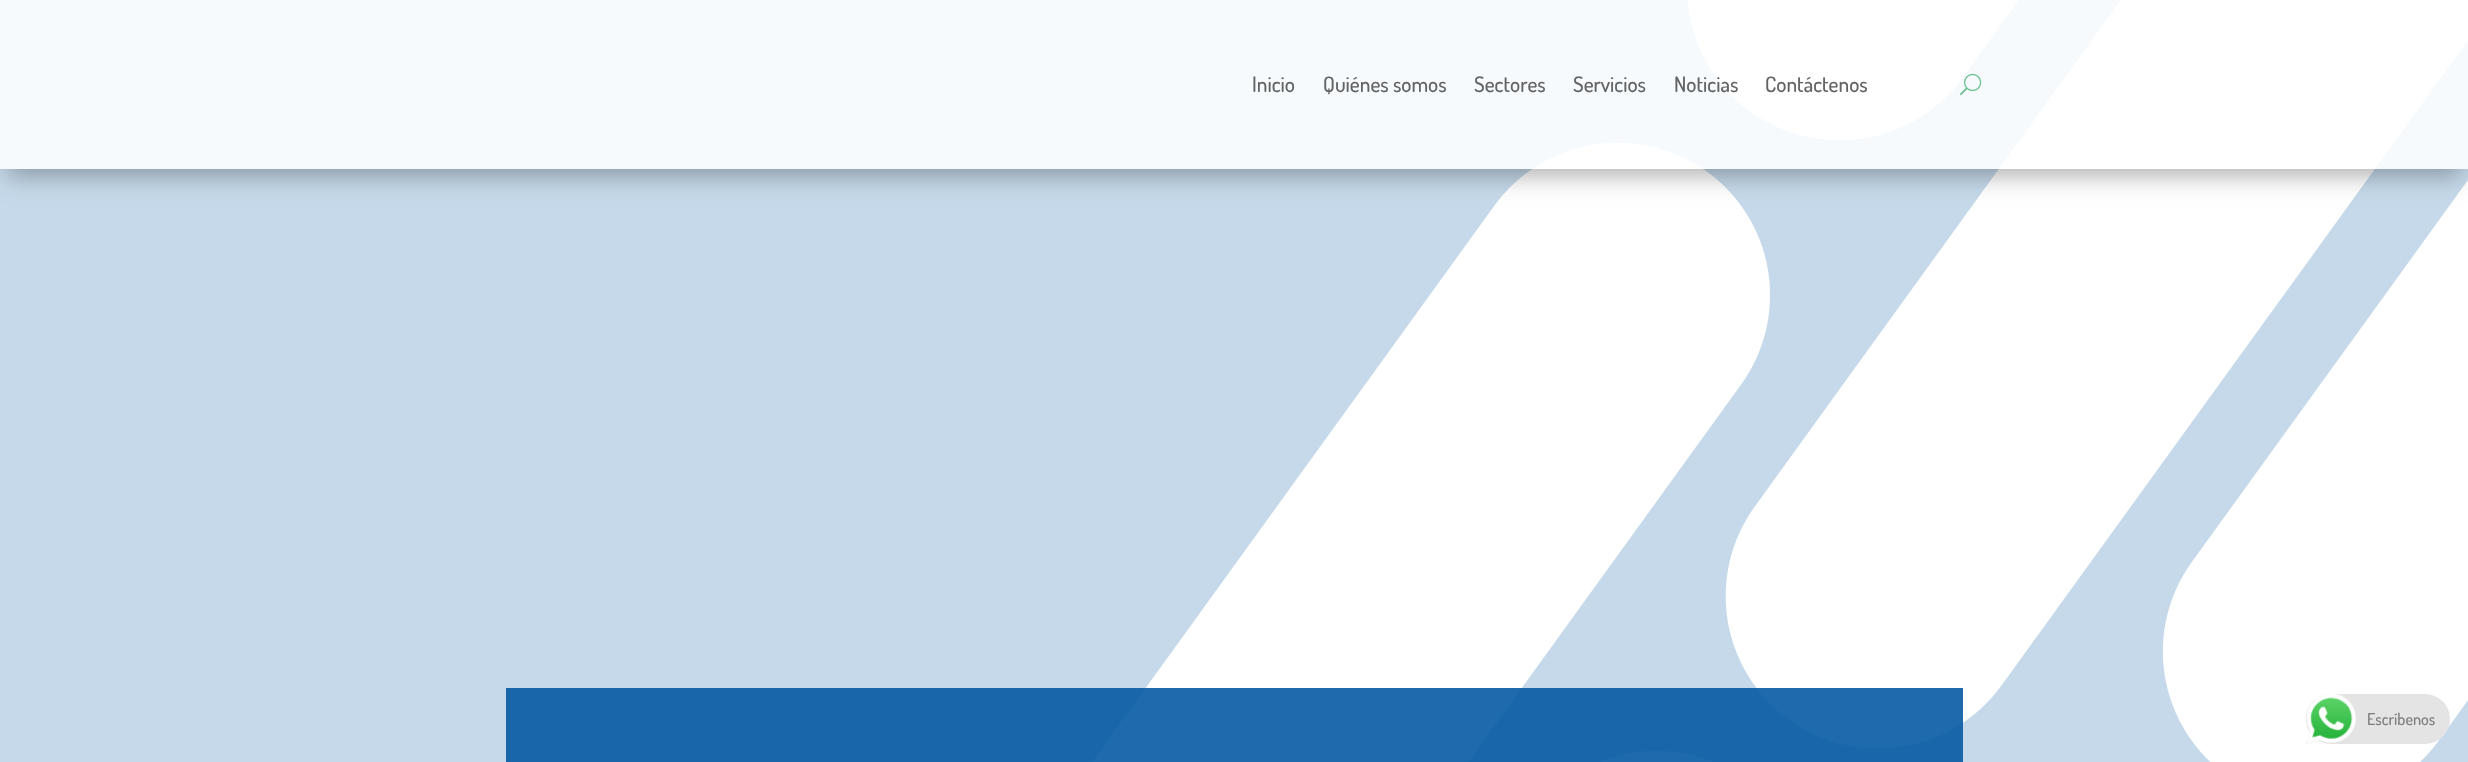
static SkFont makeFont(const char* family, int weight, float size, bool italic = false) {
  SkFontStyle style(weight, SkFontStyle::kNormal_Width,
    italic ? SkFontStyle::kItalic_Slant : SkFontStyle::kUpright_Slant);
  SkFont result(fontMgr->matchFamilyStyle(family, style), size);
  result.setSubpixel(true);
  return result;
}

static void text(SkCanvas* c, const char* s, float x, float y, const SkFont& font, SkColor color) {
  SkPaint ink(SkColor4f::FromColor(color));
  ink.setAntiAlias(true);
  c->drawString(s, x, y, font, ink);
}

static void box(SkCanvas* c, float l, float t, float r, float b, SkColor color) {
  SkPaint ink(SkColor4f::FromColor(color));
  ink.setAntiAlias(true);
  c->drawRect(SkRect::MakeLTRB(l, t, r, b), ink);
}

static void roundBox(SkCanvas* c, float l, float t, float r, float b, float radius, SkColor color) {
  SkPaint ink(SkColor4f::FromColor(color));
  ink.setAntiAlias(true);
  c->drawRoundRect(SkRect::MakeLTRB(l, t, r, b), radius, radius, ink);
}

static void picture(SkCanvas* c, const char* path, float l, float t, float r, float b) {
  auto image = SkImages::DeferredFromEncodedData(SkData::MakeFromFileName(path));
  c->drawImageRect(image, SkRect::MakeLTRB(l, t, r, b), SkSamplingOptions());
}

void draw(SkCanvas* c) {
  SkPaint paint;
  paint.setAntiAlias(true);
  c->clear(0xffffffff);
  picture(c, "img_01.png", 0, 0, 2468, 762);
  box(c, 506, 688, 1963, 762, 0xe6065aa3);
  c->save();
  c->clipPath(SkPathBuilder(SkPathFillType::kEvenOdd).moveTo(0, 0).lineTo(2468, 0).lineTo(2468, 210).lineTo(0, 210).close().moveTo(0, 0).lineTo(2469, 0).lineTo(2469, 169).lineTo(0, 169).close().detach(), true);
  paint.setColor(0x4d000000);
  paint.setMaskFilter(SkMaskFilter::MakeBlur(kNormal_SkBlurStyle, 11));
  c->drawRect(SkRect::MakeLTRB(8, 23, 2461, 176), paint);
  paint.setMaskFilter(nullptr);
  c->restore();
  box(c, 0, 0, 2468, 169, 0xd9ffffff);
  SkFont face1 = makeFont("Dosis", 500, 21.25f);
  text(c, "Inicio", 1252, 92, face1, 0xff636465);
  text(c, "Quiénes somos", 1323, 92, face1, 0xff636465);
  text(c, "Sectores", 1474, 92, face1, 0xff636465);
  text(c, "Servicios", 1573, 92, face1, 0xff636465);
  text(c, "Noticias", 1674, 92, face1, 0xff636465);
  text(c, "Contáctenos", 1765, 92, face1, 0xff636465);
  picture(c, "img_02.png", 1960, 73, 1982, 96);
  roundBox(c, 2306, 694, 2450, 744, 25, 0xffe4e4e4);
  picture(c, "img_03.png", 2306, 694, 2356, 744);
  SkFont face2 = makeFont("Dosis", 500, 16.25f);
  text(c, "Escríbenos", 2367, 725, face2, 0xff7f7d7d);
}
